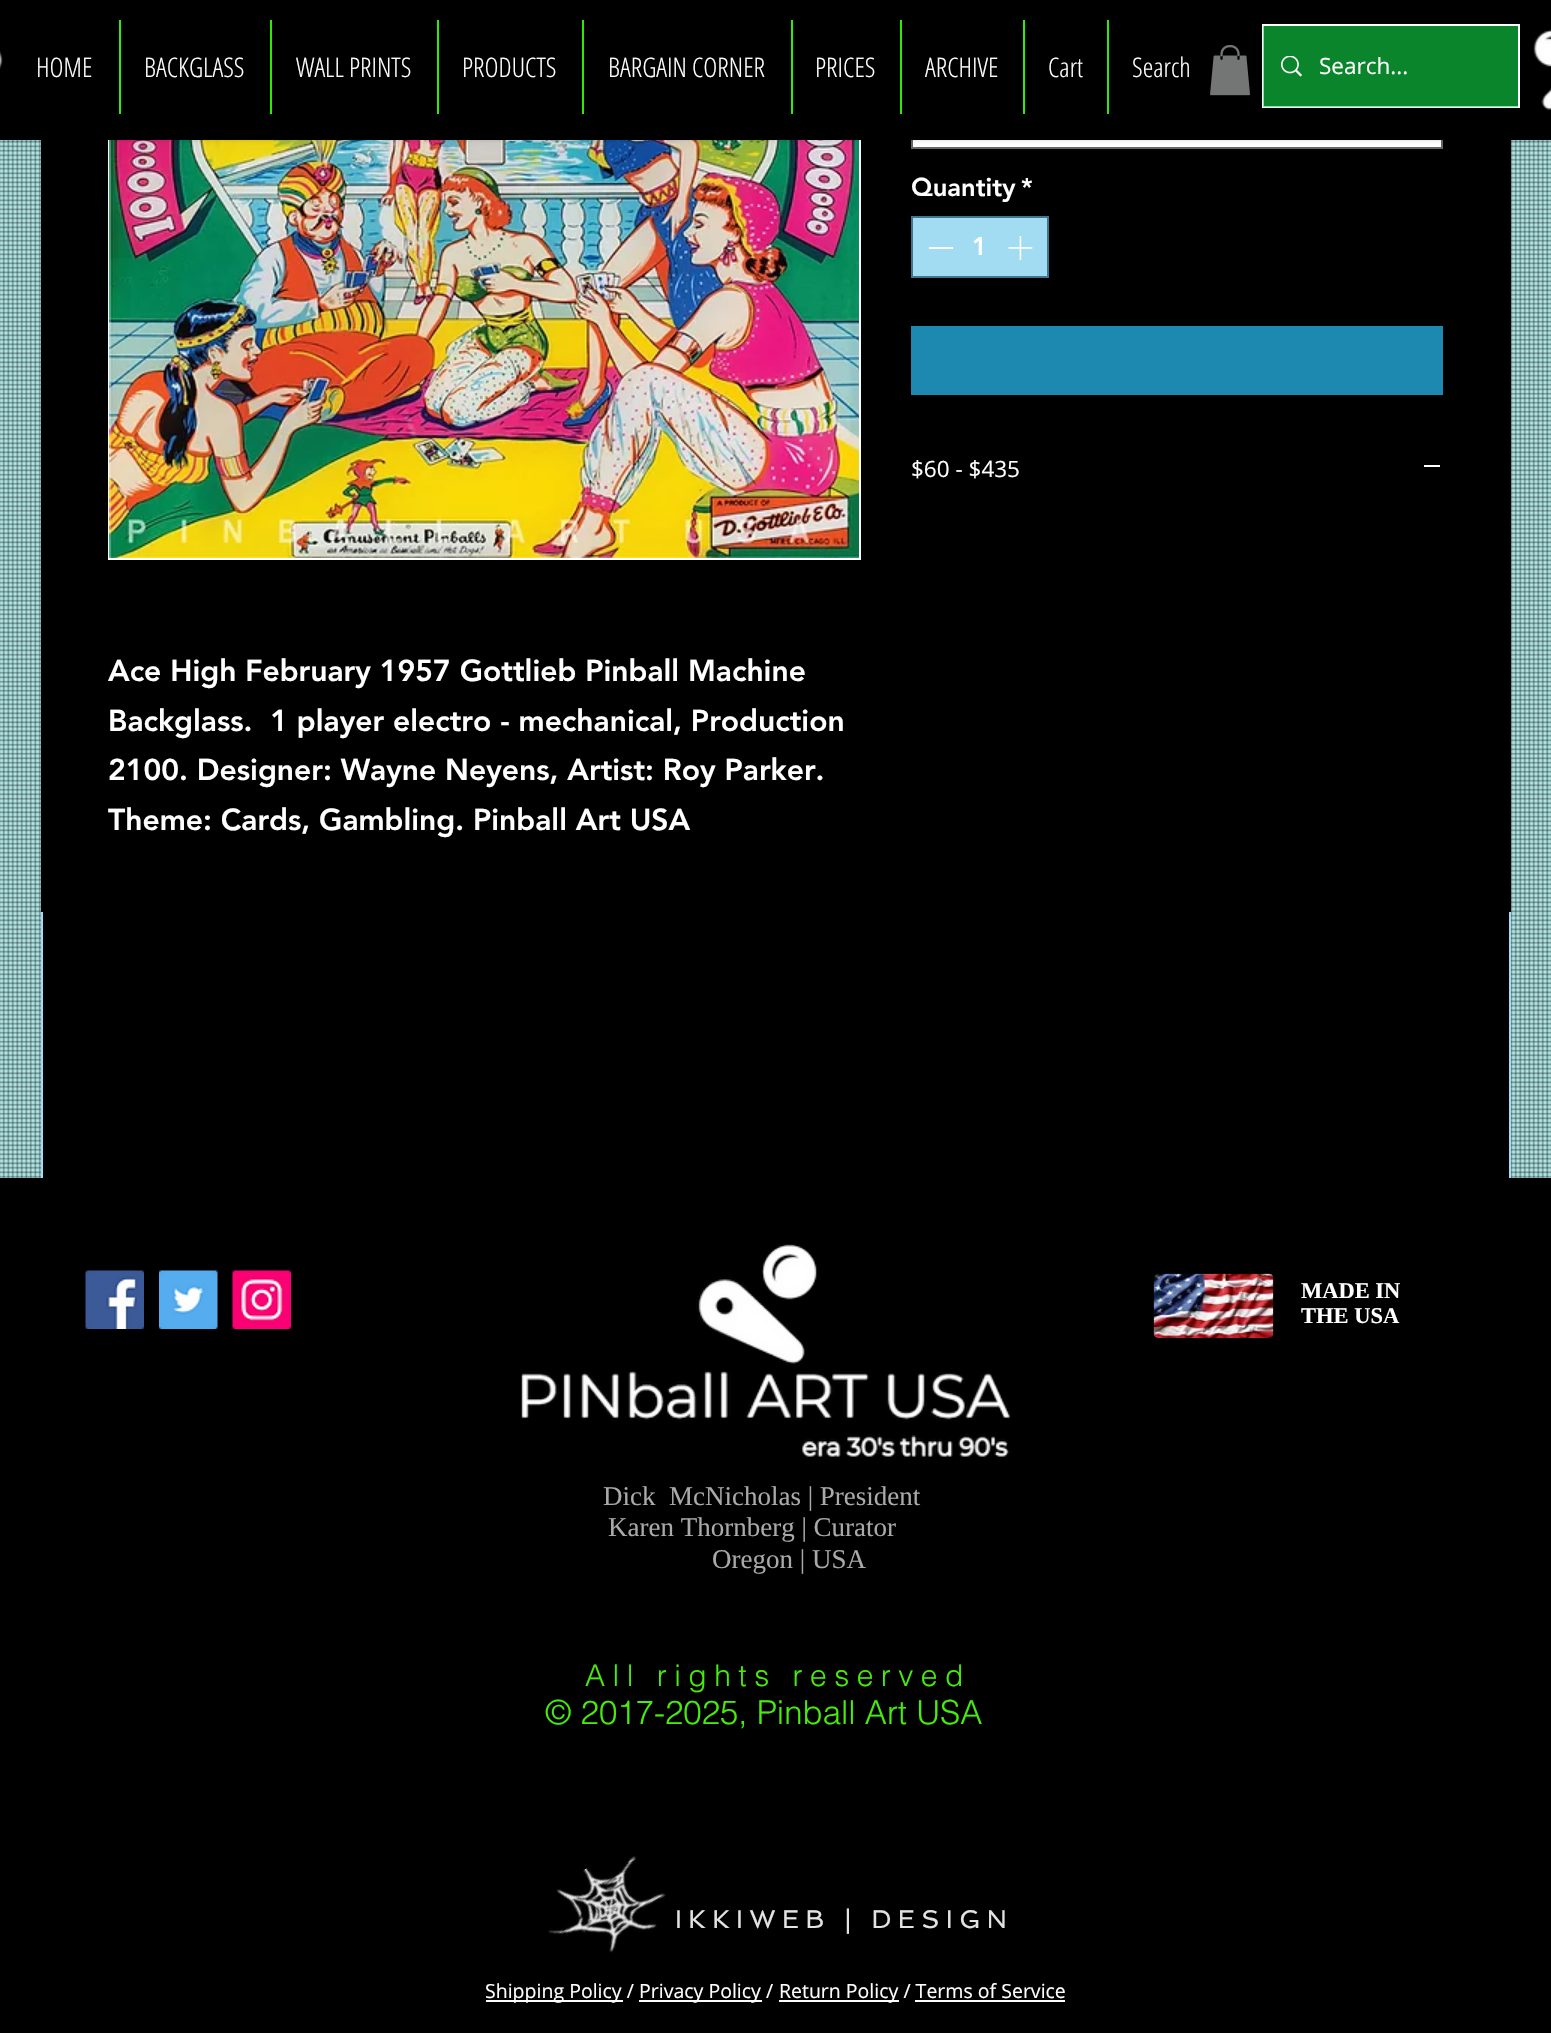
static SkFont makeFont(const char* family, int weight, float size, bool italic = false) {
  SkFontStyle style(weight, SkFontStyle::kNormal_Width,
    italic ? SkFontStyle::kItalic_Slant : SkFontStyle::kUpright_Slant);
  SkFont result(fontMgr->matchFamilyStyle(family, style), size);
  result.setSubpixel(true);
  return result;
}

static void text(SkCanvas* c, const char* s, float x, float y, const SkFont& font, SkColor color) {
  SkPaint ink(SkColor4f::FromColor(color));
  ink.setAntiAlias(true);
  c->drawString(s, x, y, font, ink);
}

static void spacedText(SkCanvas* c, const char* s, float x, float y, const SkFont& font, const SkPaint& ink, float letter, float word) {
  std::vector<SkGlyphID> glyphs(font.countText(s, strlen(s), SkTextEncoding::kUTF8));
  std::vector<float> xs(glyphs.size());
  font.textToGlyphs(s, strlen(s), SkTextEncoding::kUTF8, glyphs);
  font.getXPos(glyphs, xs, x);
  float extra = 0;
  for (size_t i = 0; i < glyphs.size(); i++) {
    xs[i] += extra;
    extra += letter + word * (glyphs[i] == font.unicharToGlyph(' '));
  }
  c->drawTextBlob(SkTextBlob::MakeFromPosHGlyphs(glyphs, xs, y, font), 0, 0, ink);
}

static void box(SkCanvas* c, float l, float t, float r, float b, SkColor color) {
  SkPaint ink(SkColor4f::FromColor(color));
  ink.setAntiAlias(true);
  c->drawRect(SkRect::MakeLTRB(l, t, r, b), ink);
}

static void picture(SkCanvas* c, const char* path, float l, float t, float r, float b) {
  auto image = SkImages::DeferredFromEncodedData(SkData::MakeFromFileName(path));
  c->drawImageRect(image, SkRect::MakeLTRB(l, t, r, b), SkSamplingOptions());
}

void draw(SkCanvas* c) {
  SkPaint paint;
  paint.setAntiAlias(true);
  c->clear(0xffafe6e5);
  picture(c, "img_13.png", 0, 140, 1551, 1178);
  box(c, 43, 912, 1509, 1178, 0xff000000);
  paint.setStyle(SkPaint::kStroke_Style);
  paint.setStrokeWidth(2);
  paint.setColor(0xffa1dcf2);
  c->drawRect(SkRect::MakeLTRB(42, -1, 1510, 1198), paint);
  box(c, 41, 140, 1511, 912, 0xff000000);
  box(c, 913, 140, 1441, 147, 0xffffffff);
  paint.setColor(0xff666666);
  c->drawRect(SkRect::MakeLTRB(912, 90, 1442, 148), paint);
  paint.setColor(0xffffffff);
  c->drawRect(SkRect::MakeLTRB(109, -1, 860, 559), paint);
  picture(c, "img_06.png", 109, 140, 859, 558);
  paint.setStyle(SkPaint::kFill_Style);
  paint.setColor(0xb3000000);
  paint.setMaskFilter(SkMaskFilter::MakeBlur(kNormal_SkBlurStyle, 4));
  c->drawRect(SkRect::MakeLTRB(0, 0, 1551, 135), paint);
  paint.setMaskFilter(nullptr);
  box(c, 0, 0, 1551, 140, 0xff000000);
  picture(c, "img_01.png", 0, 51, 3, 69);
  SkFont face1 = makeFont("Open Sans Condensed", 300, 27);
  text(c, "HOME", 36, 77, face1, 0xffffffff);
  box(c, 119, 20, 121, 114, 0xff2feb00);
  text(c, "BACKGLASS", 144, 77, face1, 0xffffffff);
  box(c, 270, 20, 272, 114, 0xff2feb00);
  text(c, "WALL PRINTS", 296, 77, face1, 0xffffffff);
  box(c, 437, 20, 439, 114, 0xff2feb00);
  text(c, "PRODUCTS", 462, 77, face1, 0xffffffff);
  box(c, 582, 20, 584, 114, 0xff2feb00);
  text(c, "BARGAIN CORNER", 608, 77, face1, 0xffffffff);
  box(c, 791, 20, 793, 114, 0xff2feb00);
  text(c, "PRICES", 815, 77, face1, 0xffffffff);
  box(c, 900, 20, 902, 114, 0xff2feb00);
  text(c, "ARCHIVE", 925, 77, face1, 0xffffffff);
  box(c, 1023, 20, 1025, 114, 0xff2feb00);
  text(c, "Cart", 1048, 77, face1, 0xffffffff);
  box(c, 1107, 20, 1109, 114, 0xff2feb00);
  text(c, "Search", 1132, 77, face1, 0xffffffff);
  picture(c, "img_02.png", 1210, 45, 1250, 96);
  paint.setStyle(SkPaint::kStroke_Style);
  paint.setColor(0xffffffff);
  c->drawRect(SkRect::MakeLTRB(1263, 25, 1519, 107), paint);
  box(c, 1263, 26, 1518, 107, 0x9412e64b);
  picture(c, "img_03.png", 1281, 56, 1302, 77);
  SkFont face2 = makeFont("Open Sans", 400, 22.5f);
  text(c, "Search...", 1319, 74, face2, 0xffffffff);
  picture(c, "img_04.png", 1533, 29, 1551, 110);
  SkFont face3 = makeFont("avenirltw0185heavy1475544", 900, 25.5f);
  text(c, "Quantity", 911, 196, face3, 0xffffffff);
  text(c, "*", 1021, 196, face3, 0xffffffff);
  paint.setStyle(SkPaint::kFill_Style);
  paint.setColor(0xffa1dcf2);
  c->drawRect(SkRect::MakeLTRB(912, 217, 1048, 277), paint);
  paint.setStyle(SkPaint::kStroke_Style);
  paint.setColor(0xff40778c);
  c->drawRect(SkRect::MakeLTRB(912, 217, 1048, 277), paint);
  box(c, 929, 247, 953, 249, 0xffffffff);
  text(c, "1", 972, 255, face3, 0xffffffff);
  picture(c, "img_05.png", 1008, 236, 1033, 260);
  box(c, 911, 326, 1443, 395, 0xff1e89b0);
  text(c, "$60 - $435", 911, 477, face2, 0xffffffff);
  box(c, 1424, 465, 1440, 467, 0xffffffff);
  SkFont face4 = makeFont("avenirltw0185heavy1475544", 900, 30);
  text(c, "Ace High February 1957 Gottlieb Pinball Machine", 108, 681, face4, 0xffffffff);
  text(c, "Backglass.  1 player electro - mechanical, Production", 108, 731, face4, 0xffffffff);
  text(c, "2100. Designer: Wayne Neyens, Artist: Roy Parker.", 108, 780, face4, 0xffffffff);
  text(c, "Theme: Cards, Gambling. Pinball Art USA", 108, 830, face4, 0xffffffff);
  box(c, 0, 1178, 1551, 2033, 0xff000000);
  picture(c, "img_07.png", 85, 1270, 144, 1329);
  picture(c, "img_08.png", 159, 1270, 218, 1329);
  picture(c, "img_09.png", 232, 1270, 291, 1329);
  picture(c, "img_10.png", 521, 1244, 1011, 1457);
  picture(c, "img_11.png", 1153, 1273, 1274, 1338);
  SkFont face5 = makeFont("Liberation Serif", 700, 22.5f);
  text(c, "MADE IN", 1301, 1298, face5, 0xffffffff);
  text(c, "THE USA", 1301, 1323, face5, 0xffffffff);
  SkFont face6 = makeFont("Liberation Serif", 400, 27);
  text(c, "Dick  McNicholas | President", 603, 1505, face6, 0xffa9a9a9);
  text(c, "Karen Thornberg | Curator", 608, 1536, face6, 0xffa9a9a9);
  text(c, "Oregon | USA", 712, 1568, face6, 0xffa9a9a9);
  SkFont face7 = makeFont("helvetica", 300, 30);
  paint.setStyle(SkPaint::kFill_Style);
  paint.setColor(0xff47eb0c);
  spacedText(c, "All rights reserved", 585, 1686, face7, paint, 7.5f, 0);
  SkFont face8 = makeFont("helvetica", 300, 33);
  text(c, "© 2017-2025, Pinball Art USA", 545, 1724, face8, 0xff47eb0c);
  picture(c, "img_12.png", 548, 1856, 666, 1953);
  SkFont face9 = makeFont("Spinnaker", 400, 25.5f);
  paint.setColor(0xffe3e3e3);
  spacedText(c, "IKKIWEB | DESIGN", 675, 1928, face9, paint, 6.4f, 0);
  box(c, 486, 2000, 623, 2002, 0xffffffff);
  SkFont face10 = makeFont("Open Sans", 400, 19.5f);
  text(c, "Shipping Policy /", 485, 1998, face10, 0xffffffff);
  box(c, 639, 2000, 762, 2002, 0xffffffff);
  text(c, "Privacy Policy /", 639, 1998, face10, 0xffffffff);
  box(c, 779, 2000, 899, 2002, 0xffffffff);
  text(c, "Return Policy / Terms of Service", 779, 1998, face10, 0xffffffff);
  box(c, 915, 2000, 1065, 2002, 0xffffffff);
}
